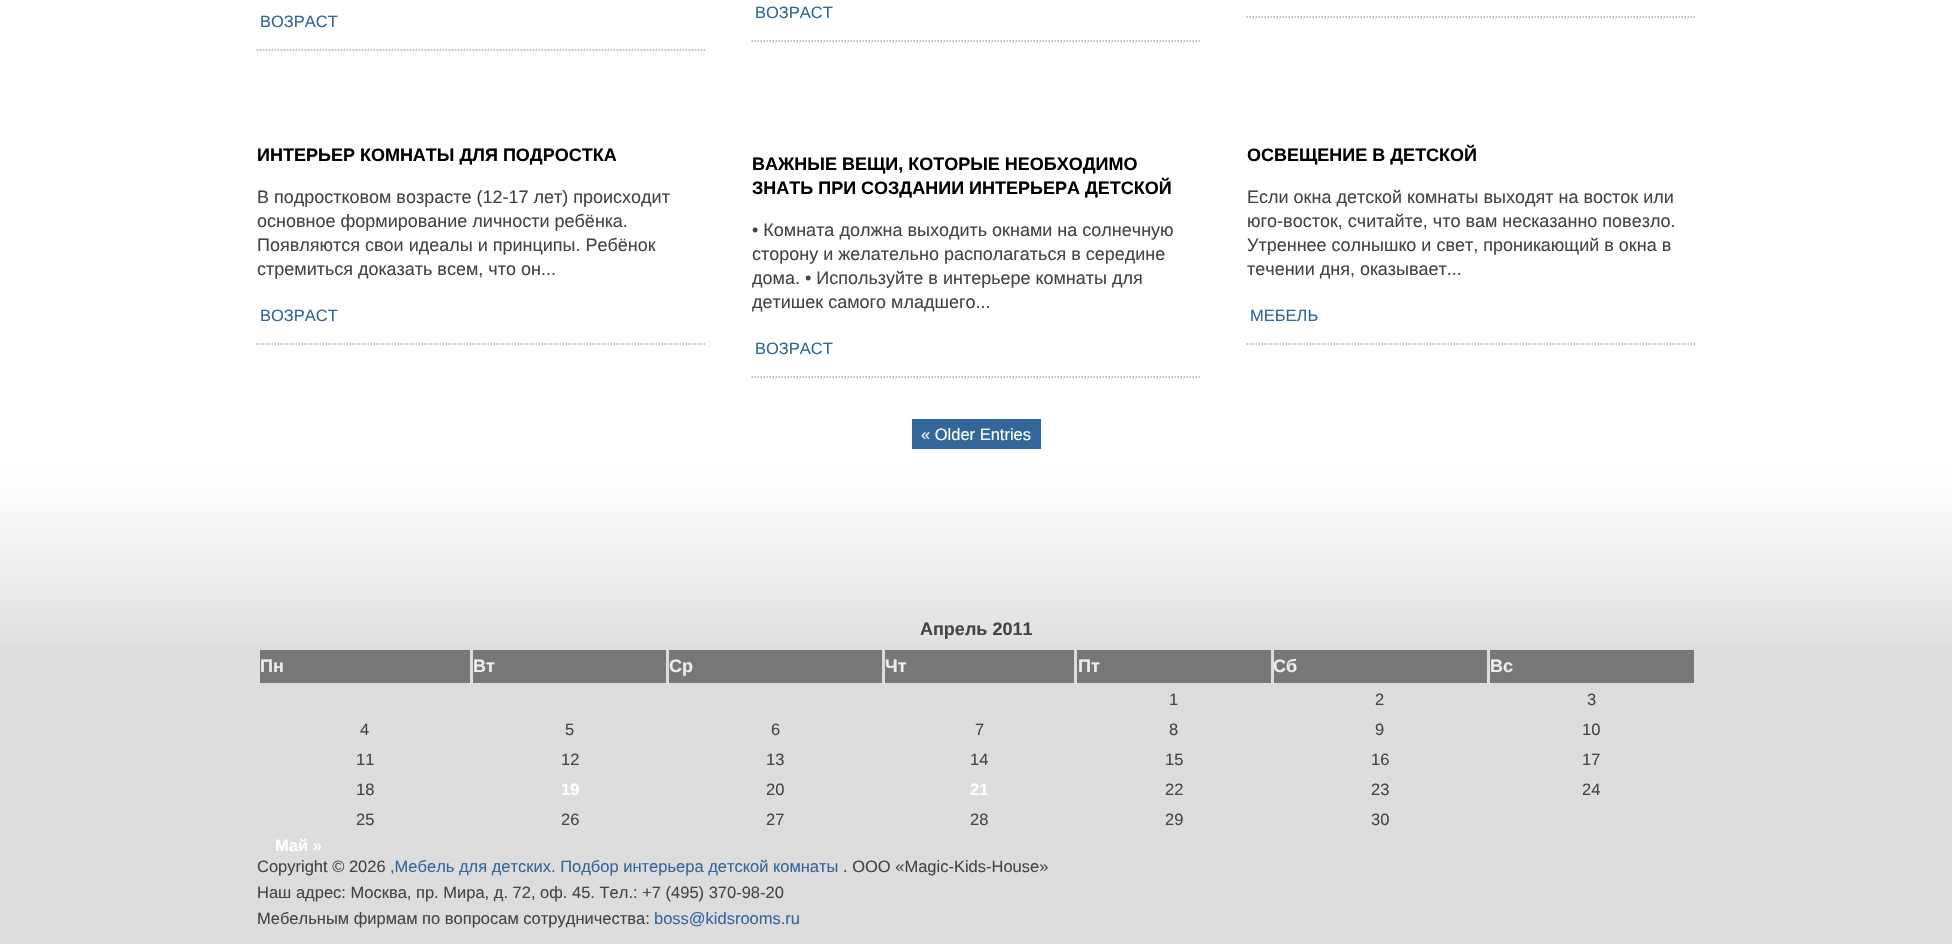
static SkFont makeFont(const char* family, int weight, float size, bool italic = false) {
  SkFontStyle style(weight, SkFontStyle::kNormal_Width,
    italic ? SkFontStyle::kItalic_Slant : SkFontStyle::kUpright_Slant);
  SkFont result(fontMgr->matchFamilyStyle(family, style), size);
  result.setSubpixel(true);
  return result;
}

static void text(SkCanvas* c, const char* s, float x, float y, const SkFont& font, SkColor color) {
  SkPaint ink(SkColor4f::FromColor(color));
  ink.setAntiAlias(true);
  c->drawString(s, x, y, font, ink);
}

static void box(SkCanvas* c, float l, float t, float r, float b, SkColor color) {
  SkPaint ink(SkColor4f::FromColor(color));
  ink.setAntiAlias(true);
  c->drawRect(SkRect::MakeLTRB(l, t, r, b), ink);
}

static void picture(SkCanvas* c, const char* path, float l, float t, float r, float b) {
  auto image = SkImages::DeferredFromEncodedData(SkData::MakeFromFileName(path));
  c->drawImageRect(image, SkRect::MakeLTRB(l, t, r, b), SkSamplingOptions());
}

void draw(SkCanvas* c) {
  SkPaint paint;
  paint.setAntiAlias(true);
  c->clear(0xffffffff);
  paint.setStyle(SkPaint::kStroke_Style);
  paint.setStrokeWidth(1.5f);
  paint.setColor(0xffaaaaaa);
  paint.setPathEffect(SkDashPathEffect::Make({{1.5f, 1.5f}}, 0));
  c->drawPath(SkPathBuilder().moveTo(751.5f, 41).lineTo(1201.5f, 41).detach(), paint);
  paint.setPathEffect(nullptr);
  SkFont face1 = makeFont("Liberation Sans", 400, 16.5f);
  text(c, "ВОЗРАСТ", 755, 18, face1, 0xff336699);
  paint.setPathEffect(SkDashPathEffect::Make({{1.5f, 1.5f}}, 0));
  c->drawPath(SkPathBuilder().moveTo(256.5f, 50).lineTo(706.5f, 50).detach(), paint);
  paint.setPathEffect(nullptr);
  text(c, "ВОЗРАСТ", 260, 27, face1, 0xff336699);
  paint.setPathEffect(SkDashPathEffect::Make({{1.5f, 1.5f}}, 0));
  c->drawPath(SkPathBuilder().moveTo(1246.5f, 17).lineTo(1696.5f, 17).detach(), paint);
  paint.setPathEffect(nullptr);
  paint.setPathEffect(SkDashPathEffect::Make({{1.5f, 1.5f}}, 0));
  c->drawPath(SkPathBuilder().moveTo(256.5f, 344).lineTo(706.5f, 344).detach(), paint);
  paint.setPathEffect(nullptr);
  SkFont face2 = makeFont("Liberation Sans", 700, 18);
  text(c, "ИНТЕРЬЕР КОМНАТЫ ДЛЯ ПОДРОСТКА", 257, 161, face2, 0xff000000);
  SkFont face3 = makeFont("Liberation Sans", 400, 18);
  text(c, "В подростковом возрасте (12-17 лет) происходит", 257, 203, face3, 0xff444444);
  text(c, "основное формирование личности ребёнка.", 257, 227, face3, 0xff444444);
  text(c, "Появляются свои идеалы и принципы. Ребёнок", 257, 251, face3, 0xff444444);
  text(c, "стремиться доказать всем, что он...", 257, 275, face3, 0xff444444);
  text(c, "ВОЗРАСТ", 260, 321, face1, 0xff336699);
  paint.setPathEffect(SkDashPathEffect::Make({{1.5f, 1.5f}}, 0));
  c->drawPath(SkPathBuilder().moveTo(751.5f, 377).lineTo(1201.5f, 377).detach(), paint);
  paint.setPathEffect(nullptr);
  text(c, "ВАЖНЫЕ ВЕЩИ, КОТОРЫЕ НЕОБХОДИМО", 752, 170, face2, 0xff000000);
  text(c, "ЗНАТЬ ПРИ СОЗДАНИИ ИНТЕРЬЕРА ДЕТСКОЙ", 752, 194, face2, 0xff000000);
  text(c, "• Комната должна выходить окнами на солнечную", 752, 236, face3, 0xff444444);
  text(c, "сторону и желательно располагаться в середине", 752, 260, face3, 0xff444444);
  text(c, "дома. • Используйте в интерьере комнаты для", 752, 284, face3, 0xff444444);
  text(c, "детишек самого младшего...", 752, 308, face3, 0xff444444);
  text(c, "ВОЗРАСТ", 755, 354, face1, 0xff336699);
  paint.setPathEffect(SkDashPathEffect::Make({{1.5f, 1.5f}}, 0));
  c->drawPath(SkPathBuilder().moveTo(1246.5f, 344).lineTo(1696.5f, 344).detach(), paint);
  paint.setPathEffect(nullptr);
  text(c, "ОСВЕЩЕНИЕ В ДЕТСКОЙ", 1247, 161, face2, 0xff000000);
  text(c, "Если окна детской комнаты выходят на восток или", 1247, 203, face3, 0xff444444);
  text(c, "юго-восток, считайте, что вам несказанно повезло.", 1247, 227, face3, 0xff444444);
  text(c, "Утреннее солнышко и свет, проникающий в окна в", 1247, 251, face3, 0xff444444);
  text(c, "течении дня, оказывает...", 1247, 275, face3, 0xff444444);
  text(c, "МЕБЕЛЬ", 1250, 321, face1, 0xff336699);
  box(c, 912, 419, 1041, 449, 0xff336699);
  text(c, "« Older Entries", 921, 440, face1, 0xffffffff);
  box(c, 0, 645, 1952, 944, 0xffdddddd);
  picture(c, "img_01.png", 0, 459, 1952, 645);
  text(c, "Апрель 2011", 920, 635, face2, 0xff444444);
  box(c, 260, 650, 470, 683, 0xff777777);
  text(c, "Пн", 260, 672, face2, 0xffeeeeee);
  box(c, 473, 650, 666, 683, 0xff777777);
  text(c, "Вт", 473, 672, face2, 0xffeeeeee);
  box(c, 669, 650, 882, 683, 0xff777777);
  text(c, "Ср", 669, 672, face2, 0xffeeeeee);
  box(c, 885, 650, 1074, 683, 0xff777777);
  text(c, "Чт", 885, 672, face2, 0xffeeeeee);
  box(c, 1077, 650, 1271, 683, 0xff777777);
  text(c, "Пт", 1078, 672, face2, 0xffeeeeee);
  box(c, 1274, 650, 1487, 683, 0xff777777);
  text(c, "Сб", 1273, 672, face2, 0xffeeeeee);
  box(c, 1490, 650, 1694, 683, 0xff777777);
  text(c, "Вс", 1490, 672, face2, 0xffeeeeee);
  text(c, "1", 1169, 705, face1, 0xff444444);
  text(c, "2", 1375, 705, face1, 0xff444444);
  text(c, "3", 1587, 705, face1, 0xff444444);
  text(c, "4", 360, 735, face1, 0xff444444);
  text(c, "5", 565, 735, face1, 0xff444444);
  text(c, "6", 771, 735, face1, 0xff444444);
  text(c, "7", 975, 735, face1, 0xff444444);
  text(c, "8", 1169, 735, face1, 0xff444444);
  text(c, "9", 1375, 735, face1, 0xff444444);
  text(c, "10", 1582, 735, face1, 0xff444444);
  text(c, "11", 356, 765, face1, 0xff444444);
  text(c, "12", 561, 765, face1, 0xff444444);
  text(c, "13", 766, 765, face1, 0xff444444);
  text(c, "14", 970, 765, face1, 0xff444444);
  text(c, "15", 1165, 765, face1, 0xff444444);
  text(c, "16", 1371, 765, face1, 0xff444444);
  text(c, "17", 1582, 765, face1, 0xff444444);
  text(c, "18", 356, 795, face1, 0xff444444);
  SkFont face4 = makeFont("Liberation Sans", 700, 16.5f);
  text(c, "19", 561, 795, face4, 0xffffffff);
  text(c, "20", 766, 795, face1, 0xff444444);
  text(c, "21", 970, 795, face4, 0xffffffff);
  text(c, "22", 1165, 795, face1, 0xff444444);
  text(c, "23", 1371, 795, face1, 0xff444444);
  text(c, "24", 1582, 795, face1, 0xff444444);
  text(c, "25", 356, 825, face1, 0xff444444);
  text(c, "26", 561, 825, face1, 0xff444444);
  text(c, "27", 766, 825, face1, 0xff444444);
  text(c, "28", 970, 825, face1, 0xff444444);
  text(c, "29", 1165, 825, face1, 0xff444444);
  text(c, "30", 1371, 825, face1, 0xff444444);
  text(c, "Май »", 275, 851, face4, 0xffffffff);
  text(c, "Copyright © 2026", 257, 872, face1, 0xff444444);
  text(c, ",Мебель для детских. Подбор интерьера детской комнаты", 390, 872, face1, 0xff336699);
  text(c, ". ООО «Magic-Kids-House»", 843, 872, face1, 0xff444444);
  text(c, "Наш адрес: Москва, пр. Мира, д. 72, оф. 45. Тел.: +7 (495) 370-98-20", 257, 898, face1, 0xff444444);
  text(c, "Мебельным фирмам по вопросам сотрудничества:", 257, 924, face1, 0xff444444);
  text(c, "boss@kidsrooms.ru", 654, 924, face1, 0xff336699);
}
